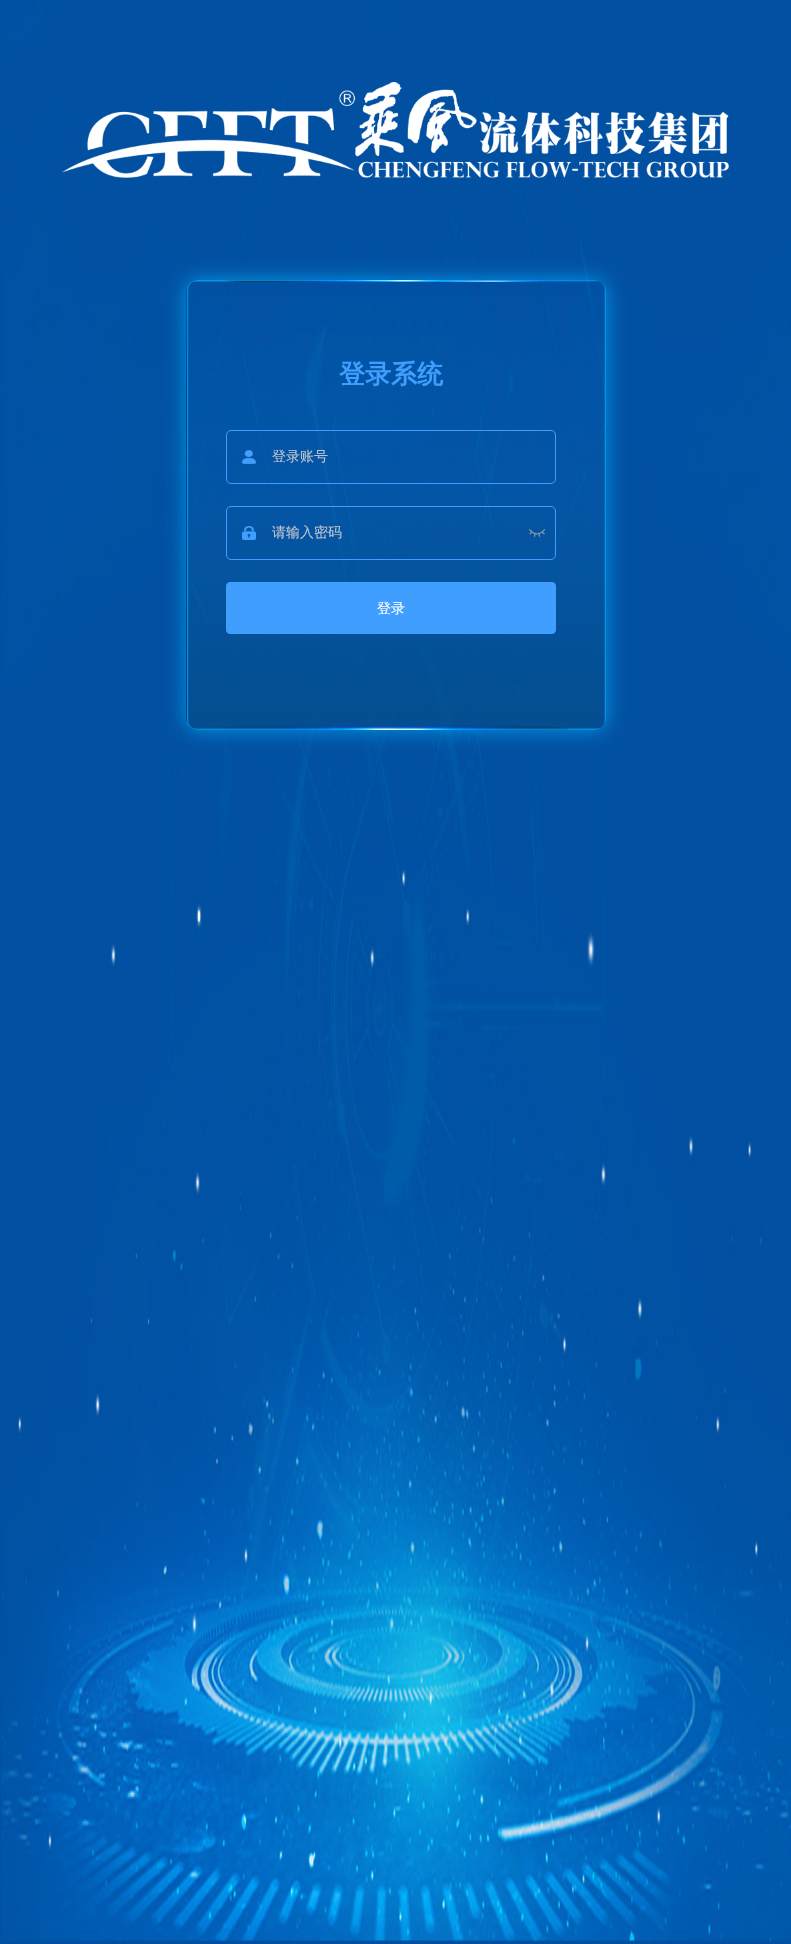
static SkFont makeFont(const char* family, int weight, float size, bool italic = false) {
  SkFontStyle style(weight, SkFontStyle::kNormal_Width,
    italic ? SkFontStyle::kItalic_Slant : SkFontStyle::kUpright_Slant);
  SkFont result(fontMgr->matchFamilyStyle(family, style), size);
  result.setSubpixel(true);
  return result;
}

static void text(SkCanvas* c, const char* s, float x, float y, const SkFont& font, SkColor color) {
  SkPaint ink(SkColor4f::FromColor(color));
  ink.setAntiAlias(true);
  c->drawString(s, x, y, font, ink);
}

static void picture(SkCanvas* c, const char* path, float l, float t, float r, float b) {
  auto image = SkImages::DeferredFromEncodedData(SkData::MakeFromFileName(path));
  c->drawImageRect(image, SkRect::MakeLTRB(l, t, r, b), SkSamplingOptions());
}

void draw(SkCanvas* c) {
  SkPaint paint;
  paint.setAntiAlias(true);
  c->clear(0xffffffff);
  picture(c, "img_01.png", 0, 0, 791, 1944);
  picture(c, "img_02.png", 62, 82, 729, 178);
  c->save();
  c->clipPath(SkPathBuilder(SkPathFillType::kEvenOdd).moveTo(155, 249).lineTo(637, 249).lineTo(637, 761).lineTo(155, 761).close().moveTo(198, 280).lineTo(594, 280).cubicTo(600.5f, 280, 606, 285.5f, 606, 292).lineTo(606, 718).cubicTo(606, 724.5f, 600.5f, 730, 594, 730).lineTo(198, 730).cubicTo(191.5f, 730, 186, 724.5f, 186, 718).lineTo(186, 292).cubicTo(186, 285.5f, 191.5f, 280, 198, 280).close().detach(), true);
  paint.setColor(0xff0297e6);
  paint.setMaskFilter(SkMaskFilter::MakeBlur(kNormal_SkBlurStyle, 10));
  c->drawRoundRect(SkRect::MakeLTRB(186, 280, 606, 730), 12, 12, paint);
  paint.setMaskFilter(nullptr);
  c->restore();
  picture(c, "img_03.png", 186, 280, 606, 730);
  SkFont face1 = makeFont("WenQuanYi Zen Hei", 700, 26);
  text(c, "登录系统", 339, 383, face1, 0xff409eff);
  paint.setStyle(SkPaint::kStroke_Style);
  paint.setStrokeWidth(1);
  paint.setColor(0xff409eff);
  c->drawRoundRect(SkRect::MakeLTRB(226.5f, 430.5f, 555.5f, 483.5f), 4.5f, 4.5f, paint);
  picture(c, "img_04.png", 242, 450, 256, 464);
  SkFont face2 = makeFont("WenQuanYi Zen Hei", 500, 14);
  text(c, "登录账号", 272, 461, face2, 0xffc0c4cc);
  c->drawRoundRect(SkRect::MakeLTRB(226.5f, 506.5f, 555.5f, 559.5f), 4.5f, 4.5f, paint);
  picture(c, "img_05.png", 242, 526, 256, 540);
  text(c, "请输入密码", 272, 537, face2, 0xffc0c4cc);
  picture(c, "img_06.png", 529, 529, 545, 537);
  paint.setStyle(SkPaint::kFill_Style);
  c->drawRoundRect(SkRect::MakeLTRB(226.5f, 582.5f, 555.5f, 633.5f), 3.5f, 3.5f, paint);
  paint.setStyle(SkPaint::kStroke_Style);
  c->drawRoundRect(SkRect::MakeLTRB(226.5f, 582.5f, 555.5f, 633.5f), 3.5f, 3.5f, paint);
  text(c, "登录", 377, 613, face2, 0xffffffff);
}
